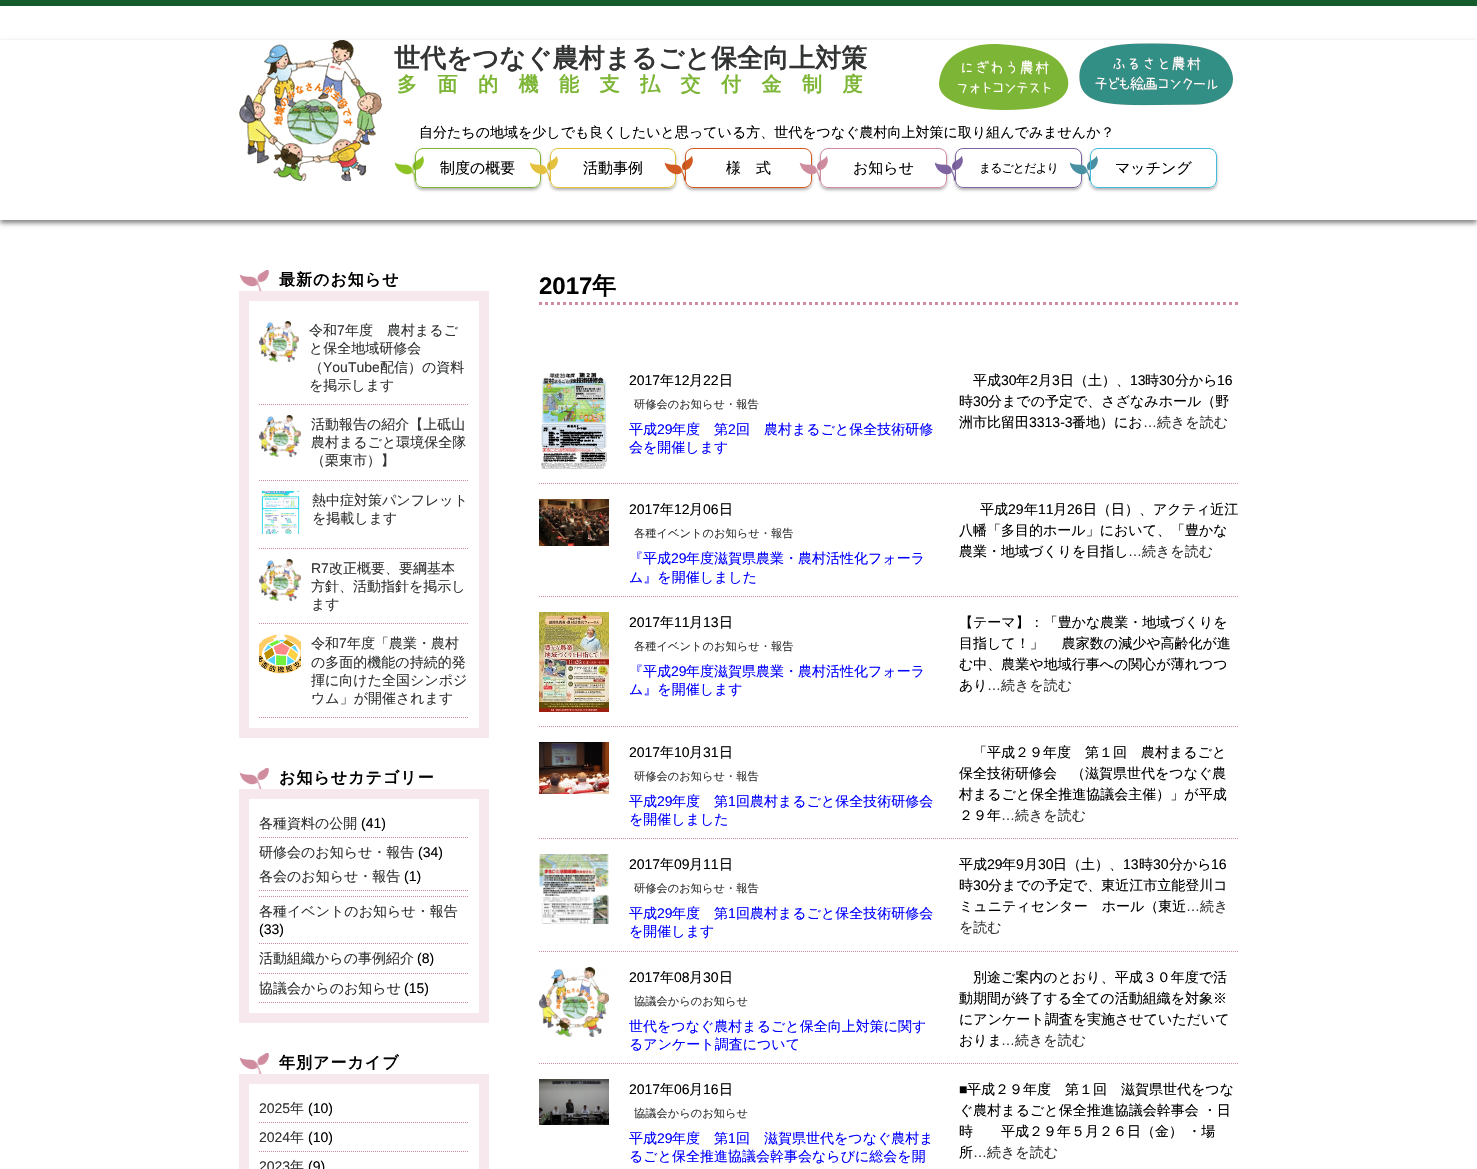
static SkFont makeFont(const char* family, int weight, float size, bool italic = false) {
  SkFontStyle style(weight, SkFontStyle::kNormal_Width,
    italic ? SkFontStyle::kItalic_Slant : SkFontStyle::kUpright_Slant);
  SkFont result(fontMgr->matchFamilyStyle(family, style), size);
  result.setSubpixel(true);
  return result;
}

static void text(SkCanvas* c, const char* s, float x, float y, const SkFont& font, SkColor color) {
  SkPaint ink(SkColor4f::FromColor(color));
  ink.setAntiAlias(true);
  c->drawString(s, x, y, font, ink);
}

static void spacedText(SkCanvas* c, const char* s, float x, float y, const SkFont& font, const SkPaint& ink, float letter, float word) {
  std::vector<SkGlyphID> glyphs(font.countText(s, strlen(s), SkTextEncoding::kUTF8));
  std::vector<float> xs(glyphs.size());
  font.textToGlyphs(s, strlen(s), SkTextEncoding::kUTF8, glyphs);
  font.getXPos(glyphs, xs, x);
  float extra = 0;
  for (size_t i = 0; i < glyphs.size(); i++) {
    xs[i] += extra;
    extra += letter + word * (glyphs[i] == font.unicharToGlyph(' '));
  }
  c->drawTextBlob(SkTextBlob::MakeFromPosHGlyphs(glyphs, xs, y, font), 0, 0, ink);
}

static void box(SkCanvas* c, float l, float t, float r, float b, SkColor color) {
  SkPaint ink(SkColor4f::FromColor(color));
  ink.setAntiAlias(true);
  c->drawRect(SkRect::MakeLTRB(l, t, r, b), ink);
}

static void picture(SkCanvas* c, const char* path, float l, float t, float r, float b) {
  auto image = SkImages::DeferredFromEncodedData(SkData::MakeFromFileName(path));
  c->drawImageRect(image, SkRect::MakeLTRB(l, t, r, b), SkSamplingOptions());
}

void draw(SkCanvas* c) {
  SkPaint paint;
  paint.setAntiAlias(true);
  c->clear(0xffffffff);
  box(c, 0, 0, 1477, 6, 0xff145c2c);
  c->save();
  c->clipPath(SkPathBuilder(SkPathFillType::kEvenOdd).moveTo(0, 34).lineTo(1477, 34).lineTo(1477, 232).lineTo(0, 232).close().moveTo(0, 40).lineTo(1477, 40).lineTo(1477, 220).lineTo(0, 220).close().detach(), true);
  paint.setColor(0x80000000);
  paint.setMaskFilter(SkMaskFilter::MakeBlur(kNormal_SkBlurStyle, 2.5f));
  c->drawRect(SkRect::MakeLTRB(0, 43, 1477, 223), paint);
  paint.setMaskFilter(nullptr);
  c->restore();
  picture(c, "img_01.png", 239, 40, 382, 181);
  SkFont face1 = makeFont("WenQuanYi Zen Hei", 700, 26);
  text(c, "世代をつなぐ農村まるごと保全向上対策", 394, 67, face1, 0xff323333);
  SkFont face2 = makeFont("WenQuanYi Zen Hei", 700, 20);
  paint.setColor(0xff7db636);
  spacedText(c, "多面的機能支払交付金制度", 397, 91, face2, paint, 20.5f, 0);
  picture(c, "img_02.png", 939, 44, 1069, 110);
  picture(c, "img_03.png", 1079, 43, 1233, 106);
  SkFont face3 = makeFont("WenQuanYi Zen Hei", 500, 14);
  text(c, "自分たちの地域を少しでも良くしたいと思っている方、世代をつなぐ農村向上対策に取り組んでみませんか？", 419, 137, face3, 0xff000000);
  picture(c, "img_04.png", 394, 156, 424, 181);
  c->save();
  c->clipPath(SkPathBuilder(SkPathFillType::kEvenOdd).moveTo(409, 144).lineTo(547, 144).lineTo(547, 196).lineTo(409, 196).close().moveTo(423, 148).lineTo(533, 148).cubicTo(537.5f, 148, 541, 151.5f, 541, 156).lineTo(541, 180).cubicTo(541, 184.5f, 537.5f, 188, 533, 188).lineTo(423, 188).cubicTo(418.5f, 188, 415, 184.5f, 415, 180).lineTo(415, 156).cubicTo(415, 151.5f, 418.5f, 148, 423, 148).close().detach(), true);
  paint.setColor(0x4d000000);
  paint.setMaskFilter(SkMaskFilter::MakeBlur(kNormal_SkBlurStyle, 1.5f));
  c->drawRoundRect(SkRect::MakeLTRB(415, 150, 541, 190), 8, 8, paint);
  paint.setMaskFilter(nullptr);
  c->restore();
  paint.setStyle(SkPaint::kStroke_Style);
  paint.setStrokeWidth(1);
  paint.setColor(0xff7db636);
  c->drawRoundRect(SkRect::MakeLTRB(415.5f, 148.5f, 540.5f, 187.5f), 7.5f, 7.5f, paint);
  SkFont face4 = makeFont("WenQuanYi Zen Hei", 500, 15);
  text(c, "制度の概要", 440, 173, face4, 0xff000000);
  picture(c, "img_05.png", 529, 156, 558, 181);
  c->save();
  c->clipPath(SkPathBuilder(SkPathFillType::kEvenOdd).moveTo(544, 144).lineTo(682, 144).lineTo(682, 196).lineTo(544, 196).close().moveTo(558, 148).lineTo(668, 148).cubicTo(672.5f, 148, 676, 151.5f, 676, 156).lineTo(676, 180).cubicTo(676, 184.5f, 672.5f, 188, 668, 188).lineTo(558, 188).cubicTo(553.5f, 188, 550, 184.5f, 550, 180).lineTo(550, 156).cubicTo(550, 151.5f, 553.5f, 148, 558, 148).close().detach(), true);
  paint.setStyle(SkPaint::kFill_Style);
  paint.setColor(0x4d000000);
  paint.setMaskFilter(SkMaskFilter::MakeBlur(kNormal_SkBlurStyle, 1.5f));
  c->drawRoundRect(SkRect::MakeLTRB(550, 150, 676, 190), 8, 8, paint);
  paint.setMaskFilter(nullptr);
  c->restore();
  paint.setStyle(SkPaint::kStroke_Style);
  paint.setColor(0xffe4c23e);
  c->drawRoundRect(SkRect::MakeLTRB(550.5f, 148.5f, 675.5f, 187.5f), 7.5f, 7.5f, paint);
  text(c, "活動事例", 583, 173, face4, 0xff000000);
  picture(c, "img_06.png", 664, 156, 693, 181);
  c->save();
  c->clipPath(SkPathBuilder(SkPathFillType::kEvenOdd).moveTo(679, 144).lineTo(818, 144).lineTo(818, 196).lineTo(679, 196).close().moveTo(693, 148).lineTo(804, 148).cubicTo(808.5f, 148, 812, 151.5f, 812, 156).lineTo(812, 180).cubicTo(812, 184.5f, 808.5f, 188, 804, 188).lineTo(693, 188).cubicTo(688.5f, 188, 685, 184.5f, 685, 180).lineTo(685, 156).cubicTo(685, 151.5f, 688.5f, 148, 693, 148).close().detach(), true);
  paint.setStyle(SkPaint::kFill_Style);
  paint.setColor(0x4d000000);
  paint.setMaskFilter(SkMaskFilter::MakeBlur(kNormal_SkBlurStyle, 1.5f));
  c->drawRoundRect(SkRect::MakeLTRB(685, 150, 812, 190), 8, 8, paint);
  paint.setMaskFilter(nullptr);
  c->restore();
  paint.setStyle(SkPaint::kStroke_Style);
  paint.setColor(0xffd15a20);
  c->drawRoundRect(SkRect::MakeLTRB(685.5f, 148.5f, 811.5f, 187.5f), 7.5f, 7.5f, paint);
  text(c, "様　式", 726, 173, face4, 0xff000000);
  picture(c, "img_07.png", 799, 156, 828, 181);
  c->save();
  c->clipPath(SkPathBuilder(SkPathFillType::kEvenOdd).moveTo(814, 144).lineTo(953, 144).lineTo(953, 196).lineTo(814, 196).close().moveTo(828, 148).lineTo(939, 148).cubicTo(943.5f, 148, 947, 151.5f, 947, 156).lineTo(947, 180).cubicTo(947, 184.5f, 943.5f, 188, 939, 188).lineTo(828, 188).cubicTo(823.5f, 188, 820, 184.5f, 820, 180).lineTo(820, 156).cubicTo(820, 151.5f, 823.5f, 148, 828, 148).close().detach(), true);
  paint.setStyle(SkPaint::kFill_Style);
  paint.setColor(0x4d000000);
  paint.setMaskFilter(SkMaskFilter::MakeBlur(kNormal_SkBlurStyle, 1.5f));
  c->drawRoundRect(SkRect::MakeLTRB(820, 150, 947, 190), 8, 8, paint);
  paint.setMaskFilter(nullptr);
  c->restore();
  paint.setStyle(SkPaint::kStroke_Style);
  paint.setColor(0xffd08c9f);
  c->drawRoundRect(SkRect::MakeLTRB(820.5f, 148.5f, 946.5f, 187.5f), 7.5f, 7.5f, paint);
  text(c, "お知らせ", 853, 173, face4, 0xff000000);
  picture(c, "img_08.png", 934, 156, 963, 181);
  c->save();
  c->clipPath(SkPathBuilder(SkPathFillType::kEvenOdd).moveTo(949, 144).lineTo(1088, 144).lineTo(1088, 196).lineTo(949, 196).close().moveTo(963, 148).lineTo(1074, 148).cubicTo(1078.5f, 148, 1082, 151.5f, 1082, 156).lineTo(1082, 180).cubicTo(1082, 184.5f, 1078.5f, 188, 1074, 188).lineTo(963, 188).cubicTo(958.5f, 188, 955, 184.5f, 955, 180).lineTo(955, 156).cubicTo(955, 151.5f, 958.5f, 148, 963, 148).close().detach(), true);
  paint.setStyle(SkPaint::kFill_Style);
  paint.setColor(0x4d000000);
  paint.setMaskFilter(SkMaskFilter::MakeBlur(kNormal_SkBlurStyle, 1.5f));
  c->drawRoundRect(SkRect::MakeLTRB(955, 150, 1082, 190), 8, 8, paint);
  paint.setMaskFilter(nullptr);
  c->restore();
  paint.setStyle(SkPaint::kStroke_Style);
  paint.setColor(0xff7e63a1);
  c->drawRoundRect(SkRect::MakeLTRB(955.5f, 148.5f, 1081.5f, 187.5f), 7.5f, 7.5f, paint);
  SkFont face5 = makeFont("WenQuanYi Zen Hei", 500, 12);
  paint.setStyle(SkPaint::kFill_Style);
  paint.setColor(0xff000000);
  spacedText(c, "まるごとだより", 979, 172, face5, paint, -1, 0);
  picture(c, "img_09.png", 1069, 156, 1098, 181);
  c->save();
  c->clipPath(SkPathBuilder(SkPathFillType::kEvenOdd).moveTo(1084, 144).lineTo(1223, 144).lineTo(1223, 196).lineTo(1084, 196).close().moveTo(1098, 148).lineTo(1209, 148).cubicTo(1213.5f, 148, 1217, 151.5f, 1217, 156).lineTo(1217, 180).cubicTo(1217, 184.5f, 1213.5f, 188, 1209, 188).lineTo(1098, 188).cubicTo(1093.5f, 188, 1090, 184.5f, 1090, 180).lineTo(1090, 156).cubicTo(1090, 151.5f, 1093.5f, 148, 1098, 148).close().detach(), true);
  paint.setColor(0x4d000000);
  paint.setMaskFilter(SkMaskFilter::MakeBlur(kNormal_SkBlurStyle, 1.5f));
  c->drawRoundRect(SkRect::MakeLTRB(1090, 150, 1217, 190), 8, 8, paint);
  paint.setMaskFilter(nullptr);
  c->restore();
  paint.setStyle(SkPaint::kStroke_Style);
  paint.setColor(0xff42badb);
  c->drawRoundRect(SkRect::MakeLTRB(1090.5f, 148.5f, 1216.5f, 187.5f), 7.5f, 7.5f, paint);
  text(c, "マッチング", 1115, 173, face4, 0xff000000);
  picture(c, "img_10.png", 239, 270, 269, 291);
  SkFont face6 = makeFont("WenQuanYi Zen Hei", 700, 16);
  paint.setStyle(SkPaint::kFill_Style);
  paint.setColor(0xff000000);
  spacedText(c, "最新のお知らせ", 279, 285, face6, paint, 1, 0);
  paint.setStyle(SkPaint::kStroke_Style);
  paint.setStrokeWidth(10);
  paint.setColor(0xfff6e8ec);
  c->drawRect(SkRect::MakeLTRB(244, 296, 484, 733), paint);
  paint.setStrokeWidth(1);
  paint.setColor(0xffd08c9f);
  paint.setPathEffect(SkDashPathEffect::Make({{1, 1}}, 0));
  c->drawPath(SkPathBuilder().moveTo(259, 404.5f).lineTo(469, 404.5f).detach(), paint);
  paint.setPathEffect(nullptr);
  picture(c, "img_11.png", 259, 321, 299, 362);
  text(c, "令和", 309, 335, face3, 0xff323333);
  SkFont face7 = makeFont("Liberation Sans", 400, 14);
  text(c, "7", 337, 335, face7, 0xff323333);
  text(c, "年度　農村まるご", 345, 335, face3, 0xff323333);
  text(c, "と保全地域研修会", 309, 353, face3, 0xff323333);
  text(c, "（", 309, 372, face3, 0xff323333);
  text(c, "YouTube", 323, 372, face7, 0xff323333);
  text(c, "配信）の資料", 380, 372, face3, 0xff323333);
  text(c, "を掲示します", 309, 390, face3, 0xff323333);
  paint.setPathEffect(SkDashPathEffect::Make({{1, 1}}, 0));
  c->drawPath(SkPathBuilder().moveTo(259, 480.5f).lineTo(469, 480.5f).detach(), paint);
  paint.setPathEffect(nullptr);
  picture(c, "img_12.png", 259, 415, 301, 457);
  text(c, "活動報告の紹介【上砥山", 311, 429, face3, 0xff323333);
  text(c, "農村まるごと環境保全隊", 311, 447, face3, 0xff323333);
  text(c, "（栗東市）】", 311, 465, face3, 0xff323333);
  paint.setPathEffect(SkDashPathEffect::Make({{1, 1}}, 0));
  c->drawPath(SkPathBuilder().moveTo(259, 548.5f).lineTo(469, 548.5f).detach(), paint);
  paint.setPathEffect(nullptr);
  picture(c, "img_13.png", 261, 491, 300, 534);
  text(c, "熱中症対策パンフレット", 312, 505, face3, 0xff323333);
  text(c, "を掲載します", 312, 523, face3, 0xff323333);
  paint.setPathEffect(SkDashPathEffect::Make({{1, 1}}, 0));
  c->drawPath(SkPathBuilder().moveTo(259, 623.5f).lineTo(469, 623.5f).detach(), paint);
  paint.setPathEffect(nullptr);
  picture(c, "img_12.png", 259, 559, 301, 601);
  text(c, "R7", 311, 573, face7, 0xff323333);
  text(c, "改正概要、要綱基本", 329, 573, face3, 0xff323333);
  text(c, "方針、活動指針を掲示し", 311, 591, face3, 0xff323333);
  text(c, "ます", 311, 609, face3, 0xff323333);
  paint.setPathEffect(SkDashPathEffect::Make({{1, 1}}, 0));
  c->drawPath(SkPathBuilder().moveTo(259, 717.5f).lineTo(469, 717.5f).detach(), paint);
  paint.setPathEffect(nullptr);
  picture(c, "img_14.png", 259, 634, 301, 674);
  text(c, "令和", 311, 648, face3, 0xff323333);
  text(c, "7", 339, 648, face7, 0xff323333);
  text(c, "年度「農業・農村", 347, 648, face3, 0xff323333);
  text(c, "の多面的機能の持続的発", 311, 667, face3, 0xff323333);
  text(c, "揮に向けた全国シンポジ", 311, 685, face3, 0xff323333);
  text(c, "ウム」が開催されます", 311, 703, face3, 0xff323333);
  picture(c, "img_10.png", 239, 768, 269, 789);
  paint.setStyle(SkPaint::kFill_Style);
  paint.setColor(0xff000000);
  spacedText(c, "お知らせカテゴリー", 279, 783, face6, paint, 1, 0);
  paint.setStyle(SkPaint::kStroke_Style);
  paint.setStrokeWidth(10);
  paint.setColor(0xfff6e8ec);
  c->drawRect(SkRect::MakeLTRB(244, 794, 484, 1018), paint);
  paint.setStrokeWidth(1);
  paint.setColor(0xffd08c9f);
  paint.setPathEffect(SkDashPathEffect::Make({{1, 1}}, 0));
  c->drawPath(SkPathBuilder().moveTo(259, 837.5f).lineTo(469, 837.5f).detach(), paint);
  paint.setPathEffect(nullptr);
  text(c, "各種資料の公開", 259, 828, face3, 0xff323333);
  text(c, "(41)", 361, 828, face7, 0xff000000);
  paint.setPathEffect(SkDashPathEffect::Make({{1, 1}}, 0));
  c->drawPath(SkPathBuilder().moveTo(259, 896.5f).lineTo(469, 896.5f).detach(), paint);
  paint.setPathEffect(nullptr);
  text(c, "研修会のお知らせ・報告", 259, 857, face3, 0xff323333);
  text(c, "(34)", 418, 857, face7, 0xff000000);
  paint.setPathEffect(SkDashPathEffect::Make({{1, 1}}, 0));
  c->drawPath(SkPathBuilder().moveTo(259, 890.5f).lineTo(469, 890.5f).detach(), paint);
  paint.setPathEffect(nullptr);
  text(c, "各会のお知らせ・報告", 259, 881, face3, 0xff323333);
  text(c, "(1)", 404, 881, face7, 0xff000000);
  paint.setPathEffect(SkDashPathEffect::Make({{1, 1}}, 0));
  c->drawPath(SkPathBuilder().moveTo(259, 943.5f).lineTo(469, 943.5f).detach(), paint);
  paint.setPathEffect(nullptr);
  text(c, "各種イベントのお知らせ・報告", 259, 916, face3, 0xff323333);
  text(c, "(33)", 259, 934, face7, 0xff000000);
  paint.setPathEffect(SkDashPathEffect::Make({{1, 1}}, 0));
  c->drawPath(SkPathBuilder().moveTo(259, 973.5f).lineTo(469, 973.5f).detach(), paint);
  paint.setPathEffect(nullptr);
  text(c, "活動組織からの事例紹介", 259, 963, face3, 0xff323333);
  text(c, "(8)", 417, 963, face7, 0xff000000);
  paint.setPathEffect(SkDashPathEffect::Make({{1, 1}}, 0));
  c->drawPath(SkPathBuilder().moveTo(259, 1002.5f).lineTo(469, 1002.5f).detach(), paint);
  paint.setPathEffect(nullptr);
  text(c, "協議会からのお知らせ", 259, 993, face3, 0xff323333);
  text(c, "(15)", 404, 993, face7, 0xff000000);
  picture(c, "img_10.png", 239, 1053, 269, 1074);
  paint.setStyle(SkPaint::kFill_Style);
  paint.setColor(0xff000000);
  spacedText(c, "年別アーカイブ", 279, 1068, face6, paint, 1, 0);
  paint.setStyle(SkPaint::kStroke_Style);
  paint.setStrokeWidth(10);
  paint.setColor(0xfff6e8ec);
  c->drawRect(SkRect::MakeLTRB(244, 1079, 484, 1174), paint);
  paint.setStrokeWidth(1);
  paint.setColor(0xffd08c9f);
  paint.setPathEffect(SkDashPathEffect::Make({{1, 1}}, 0));
  c->drawPath(SkPathBuilder().moveTo(259, 1122.5f).lineTo(469, 1122.5f).detach(), paint);
  paint.setPathEffect(nullptr);
  text(c, "2025", 259, 1113, face7, 0xff323333);
  text(c, "年", 290, 1113, face3, 0xff323333);
  text(c, "(10)", 308, 1113, face7, 0xff000000);
  paint.setPathEffect(SkDashPathEffect::Make({{1, 1}}, 0));
  c->drawPath(SkPathBuilder().moveTo(259, 1151.5f).lineTo(469, 1151.5f).detach(), paint);
  paint.setPathEffect(nullptr);
  text(c, "2024", 259, 1142, face7, 0xff323333);
  text(c, "年", 290, 1142, face3, 0xff323333);
  text(c, "(10)", 308, 1142, face7, 0xff000000);
  text(c, "2023", 259, 1171, face7, 0xff323333);
  text(c, "年", 290, 1171, face3, 0xff323333);
  text(c, "(9)", 308, 1171, face7, 0xff000000);
  paint.setStrokeWidth(3);
  paint.setPathEffect(SkDashPathEffect::Make({{3, 3}}, 0));
  c->drawPath(SkPathBuilder().moveTo(539, 303.5f).lineTo(1239, 303.5f).detach(), paint);
  paint.setPathEffect(nullptr);
  SkFont face8 = makeFont("Liberation Sans", 700, 24);
  text(c, "2017", 539, 294, face8, 0xff000000);
  SkFont face9 = makeFont("WenQuanYi Zen Hei", 700, 24);
  text(c, "年", 592, 294, face9, 0xff000000);
  paint.setStrokeWidth(1);
  paint.setPathEffect(SkDashPathEffect::Make({{1, 1}}, 0));
  c->drawPath(SkPathBuilder().moveTo(539, 483.5f).lineTo(1239, 483.5f).detach(), paint);
  paint.setPathEffect(nullptr);
  picture(c, "img_15.png", 540, 372, 607, 469);
  text(c, "2017", 629, 385, face7, 0xff000000);
  text(c, "年", 660, 385, face3, 0xff000000);
  text(c, "12", 674, 385, face7, 0xff000000);
  text(c, "月", 689, 385, face3, 0xff000000);
  text(c, "22", 703, 385, face7, 0xff000000);
  text(c, "日", 719, 385, face3, 0xff000000);
  SkFont face10 = makeFont("WenQuanYi Zen Hei", 500, 11.25f);
  text(c, "研修会のお知らせ・報告", 634, 408, face10, 0xff323333);
  text(c, "平成", 629, 434, face3, 0xff0000ff);
  text(c, "29", 657, 434, face7, 0xff0000ff);
  text(c, "年度　第", 672, 434, face3, 0xff0000ff);
  text(c, "2", 728, 434, face7, 0xff0000ff);
  text(c, "回　農村まるごと保全技術研修", 736, 434, face3, 0xff0000ff);
  text(c, "会を開催します", 629, 452, face3, 0xff0000ff);
  text(c, "平成", 973, 385, face3, 0xff000000);
  text(c, "30", 1001, 385, face7, 0xff000000);
  text(c, "年", 1016, 385, face3, 0xff000000);
  text(c, "2", 1030, 385, face7, 0xff000000);
  text(c, "月", 1038, 385, face3, 0xff000000);
  text(c, "3", 1052, 385, face7, 0xff000000);
  text(c, "日（土）、", 1060, 385, face3, 0xff000000);
  text(c, "13", 1130, 385, face7, 0xff000000);
  text(c, "時", 1145, 385, face3, 0xff000000);
  text(c, "30", 1159, 385, face7, 0xff000000);
  text(c, "分から", 1175, 385, face3, 0xff000000);
  text(c, "16", 1217, 385, face7, 0xff000000);
  text(c, "時", 959, 406, face3, 0xff000000);
  text(c, "30", 973, 406, face7, 0xff000000);
  text(c, "分までの予定で、さざなみホール（野", 988, 406, face3, 0xff000000);
  text(c, "洲市比留田", 959, 427, face3, 0xff000000);
  text(c, "3313-3", 1029, 427, face7, 0xff000000);
  text(c, "番地）にお", 1072, 427, face3, 0xff000000);
  text(c, "…", 1143, 427, face7, 0xff323333);
  text(c, "続きを読む", 1157, 427, face3, 0xff323333);
  paint.setPathEffect(SkDashPathEffect::Make({{1, 1}}, 0));
  c->drawPath(SkPathBuilder().moveTo(539, 596.5f).lineTo(1239, 596.5f).detach(), paint);
  paint.setPathEffect(nullptr);
  picture(c, "img_16.png", 539, 499, 609, 546);
  text(c, "2017", 629, 514, face7, 0xff000000);
  text(c, "年", 660, 514, face3, 0xff000000);
  text(c, "12", 674, 514, face7, 0xff000000);
  text(c, "月", 689, 514, face3, 0xff000000);
  text(c, "06", 703, 514, face7, 0xff000000);
  text(c, "日", 719, 514, face3, 0xff000000);
  text(c, "各種イベントのお知らせ・報告", 634, 537, face10, 0xff323333);
  text(c, "『平成", 629, 563, face3, 0xff0000ff);
  text(c, "29", 671, 563, face7, 0xff0000ff);
  text(c, "年度滋賀県農業・農村活性化フォーラ", 686, 563, face3, 0xff0000ff);
  text(c, "ム』を開催しました", 629, 582, face3, 0xff0000ff);
  text(c, "平成", 980, 514, face3, 0xff000000);
  text(c, "29", 1008, 514, face7, 0xff000000);
  text(c, "年", 1024, 514, face3, 0xff000000);
  text(c, "11", 1038, 514, face7, 0xff000000);
  text(c, "月", 1053, 514, face3, 0xff000000);
  text(c, "26", 1067, 514, face7, 0xff000000);
  text(c, "日（日）、アクティ近江", 1083, 514, face3, 0xff000000);
  text(c, "八幡「多目的ホール」において、「豊かな", 959, 535, face3, 0xff000000);
  text(c, "農業・地域づくりを目指し", 959, 556, face3, 0xff000000);
  text(c, "…", 1128, 556, face7, 0xff323333);
  text(c, "続きを読む", 1142, 556, face3, 0xff323333);
  paint.setPathEffect(SkDashPathEffect::Make({{1, 1}}, 0));
  c->drawPath(SkPathBuilder().moveTo(539, 726.5f).lineTo(1239, 726.5f).detach(), paint);
  paint.setPathEffect(nullptr);
  picture(c, "img_17.png", 539, 612, 609, 712);
  text(c, "2017", 629, 627, face7, 0xff000000);
  text(c, "年", 660, 627, face3, 0xff000000);
  text(c, "11", 674, 627, face7, 0xff000000);
  text(c, "月", 689, 627, face3, 0xff000000);
  text(c, "13", 703, 627, face7, 0xff000000);
  text(c, "日", 719, 627, face3, 0xff000000);
  text(c, "各種イベントのお知らせ・報告", 634, 650, face10, 0xff323333);
  text(c, "『平成", 629, 676, face3, 0xff0000ff);
  text(c, "29", 671, 676, face7, 0xff0000ff);
  text(c, "年度滋賀県農業・農村活性化フォーラ", 686, 676, face3, 0xff0000ff);
  text(c, "ム』を開催します", 629, 694, face3, 0xff0000ff);
  text(c, "【テーマ】：「豊かな農業・地域づくりを", 959, 627, face3, 0xff000000);
  text(c, "目指して！」 　農家数の減少や高齢化が進", 959, 648, face3, 0xff000000);
  text(c, "む中、農業や地域行事への関心が薄れつつ", 959, 669, face3, 0xff000000);
  text(c, "あり", 959, 690, face3, 0xff000000);
  text(c, "…", 987, 690, face7, 0xff323333);
  text(c, "続きを読む", 1001, 690, face3, 0xff323333);
  paint.setPathEffect(SkDashPathEffect::Make({{1, 1}}, 0));
  c->drawPath(SkPathBuilder().moveTo(539, 838.5f).lineTo(1239, 838.5f).detach(), paint);
  paint.setPathEffect(nullptr);
  picture(c, "img_18.png", 539, 742, 609, 794);
  text(c, "2017", 629, 757, face7, 0xff000000);
  text(c, "年", 660, 757, face3, 0xff000000);
  text(c, "10", 674, 757, face7, 0xff000000);
  text(c, "月", 689, 757, face3, 0xff000000);
  text(c, "31", 703, 757, face7, 0xff000000);
  text(c, "日", 719, 757, face3, 0xff000000);
  text(c, "研修会のお知らせ・報告", 634, 780, face10, 0xff323333);
  text(c, "平成", 629, 806, face3, 0xff0000ff);
  text(c, "29", 657, 806, face7, 0xff0000ff);
  text(c, "年度　第", 672, 806, face3, 0xff0000ff);
  text(c, "1", 728, 806, face7, 0xff0000ff);
  text(c, "回農村まるごと保全技術研修会", 736, 806, face3, 0xff0000ff);
  text(c, "を開催しました", 629, 824, face3, 0xff0000ff);
  text(c, "「平成２９年度　第１回　農村まるごと", 973, 757, face3, 0xff000000);
  text(c, "保全技術研修会　（滋賀県世代をつなぐ農", 959, 778, face3, 0xff000000);
  text(c, "村まるごと保全推進協議会主催）」が平成", 959, 799, face3, 0xff000000);
  text(c, "２９年", 959, 820, face3, 0xff000000);
  text(c, "…", 1001, 820, face7, 0xff323333);
  text(c, "続きを読む", 1015, 820, face3, 0xff323333);
  paint.setPathEffect(SkDashPathEffect::Make({{1, 1}}, 0));
  c->drawPath(SkPathBuilder().moveTo(539, 951.5f).lineTo(1239, 951.5f).detach(), paint);
  paint.setPathEffect(nullptr);
  picture(c, "img_19.png", 539, 854, 609, 924);
  text(c, "2017", 629, 869, face7, 0xff000000);
  text(c, "年", 660, 869, face3, 0xff000000);
  text(c, "09", 674, 869, face7, 0xff000000);
  text(c, "月", 689, 869, face3, 0xff000000);
  text(c, "11", 703, 869, face7, 0xff000000);
  text(c, "日", 719, 869, face3, 0xff000000);
  text(c, "研修会のお知らせ・報告", 634, 892, face10, 0xff323333);
  text(c, "平成", 629, 918, face3, 0xff0000ff);
  text(c, "29", 657, 918, face7, 0xff0000ff);
  text(c, "年度　第", 672, 918, face3, 0xff0000ff);
  text(c, "1", 728, 918, face7, 0xff0000ff);
  text(c, "回農村まるごと保全技術研修会", 736, 918, face3, 0xff0000ff);
  text(c, "を開催します", 629, 936, face3, 0xff0000ff);
  text(c, "平成", 959, 869, face3, 0xff000000);
  text(c, "29", 987, 869, face7, 0xff000000);
  text(c, "年", 1002, 869, face3, 0xff000000);
  text(c, "9", 1016, 869, face7, 0xff000000);
  text(c, "月", 1024, 869, face3, 0xff000000);
  text(c, "30", 1038, 869, face7, 0xff000000);
  text(c, "日（土）、", 1053, 869, face3, 0xff000000);
  text(c, "13", 1123, 869, face7, 0xff000000);
  text(c, "時", 1139, 869, face3, 0xff000000);
  text(c, "30", 1153, 869, face7, 0xff000000);
  text(c, "分から", 1169, 869, face3, 0xff000000);
  text(c, "16", 1211, 869, face7, 0xff000000);
  text(c, "時", 959, 890, face3, 0xff000000);
  text(c, "30", 973, 890, face7, 0xff000000);
  text(c, "分までの予定で、東近江市立能登川コ", 988, 890, face3, 0xff000000);
  text(c, "ミュニティセンター　ホール（東近", 959, 911, face3, 0xff000000);
  text(c, "…", 1186, 911, face7, 0xff323333);
  text(c, "続き", 1200, 911, face3, 0xff323333);
  text(c, "を読む", 959, 932, face3, 0xff323333);
  paint.setPathEffect(SkDashPathEffect::Make({{1, 1}}, 0));
  c->drawPath(SkPathBuilder().moveTo(539, 1063.5f).lineTo(1239, 1063.5f).detach(), paint);
  paint.setPathEffect(nullptr);
  picture(c, "img_20.png", 539, 967, 609, 1037);
  text(c, "2017", 629, 982, face7, 0xff000000);
  text(c, "年", 660, 982, face3, 0xff000000);
  text(c, "08", 674, 982, face7, 0xff000000);
  text(c, "月", 689, 982, face3, 0xff000000);
  text(c, "30", 703, 982, face7, 0xff000000);
  text(c, "日", 719, 982, face3, 0xff000000);
  text(c, "協議会からのお知らせ", 634, 1005, face10, 0xff323333);
  text(c, "世代をつなぐ農村まるごと保全向上対策に関す", 629, 1031, face3, 0xff0000ff);
  text(c, "るアンケート調査について", 629, 1049, face3, 0xff0000ff);
  text(c, "別途ご案内のとおり、平成３０年度で活", 973, 982, face3, 0xff000000);
  text(c, "動期間が終了する全ての活動組織を対象※", 959, 1003, face3, 0xff000000);
  text(c, "にアンケート調査を実施させていただいて", 959, 1024, face3, 0xff000000);
  text(c, "おりま", 959, 1045, face3, 0xff000000);
  text(c, "…", 1001, 1045, face7, 0xff323333);
  text(c, "続きを読む", 1015, 1045, face3, 0xff323333);
  picture(c, "img_21.png", 539, 1079, 609, 1125);
  text(c, "2017", 629, 1094, face7, 0xff000000);
  text(c, "年", 660, 1094, face3, 0xff000000);
  text(c, "06", 674, 1094, face7, 0xff000000);
  text(c, "月", 689, 1094, face3, 0xff000000);
  text(c, "16", 703, 1094, face7, 0xff000000);
  text(c, "日", 719, 1094, face3, 0xff000000);
  text(c, "協議会からのお知らせ", 634, 1117, face10, 0xff323333);
  text(c, "平成", 629, 1143, face3, 0xff0000ff);
  text(c, "29", 657, 1143, face7, 0xff0000ff);
  text(c, "年度　第", 672, 1143, face3, 0xff0000ff);
  text(c, "1", 728, 1143, face7, 0xff0000ff);
  text(c, "回　滋賀県世代をつなぐ農村ま", 736, 1143, face3, 0xff0000ff);
  text(c, "るごと保全推進協議会幹事会ならびに総会を開", 629, 1161, face3, 0xff0000ff);
  text(c, "■", 959, 1094, face7, 0xff000000);
  text(c, "平成２９年度　第１回　滋賀県世代をつな", 967, 1094, face3, 0xff000000);
  text(c, "ぐ農村まるごと保全推進協議会幹事会 ・日", 959, 1115, face3, 0xff000000);
  text(c, "時　　平成２９年５月２６日（金） ・場", 959, 1136, face3, 0xff000000);
  text(c, "所", 959, 1157, face3, 0xff000000);
  text(c, "…", 973, 1157, face7, 0xff323333);
  text(c, "続きを読む", 987, 1157, face3, 0xff323333);
}
